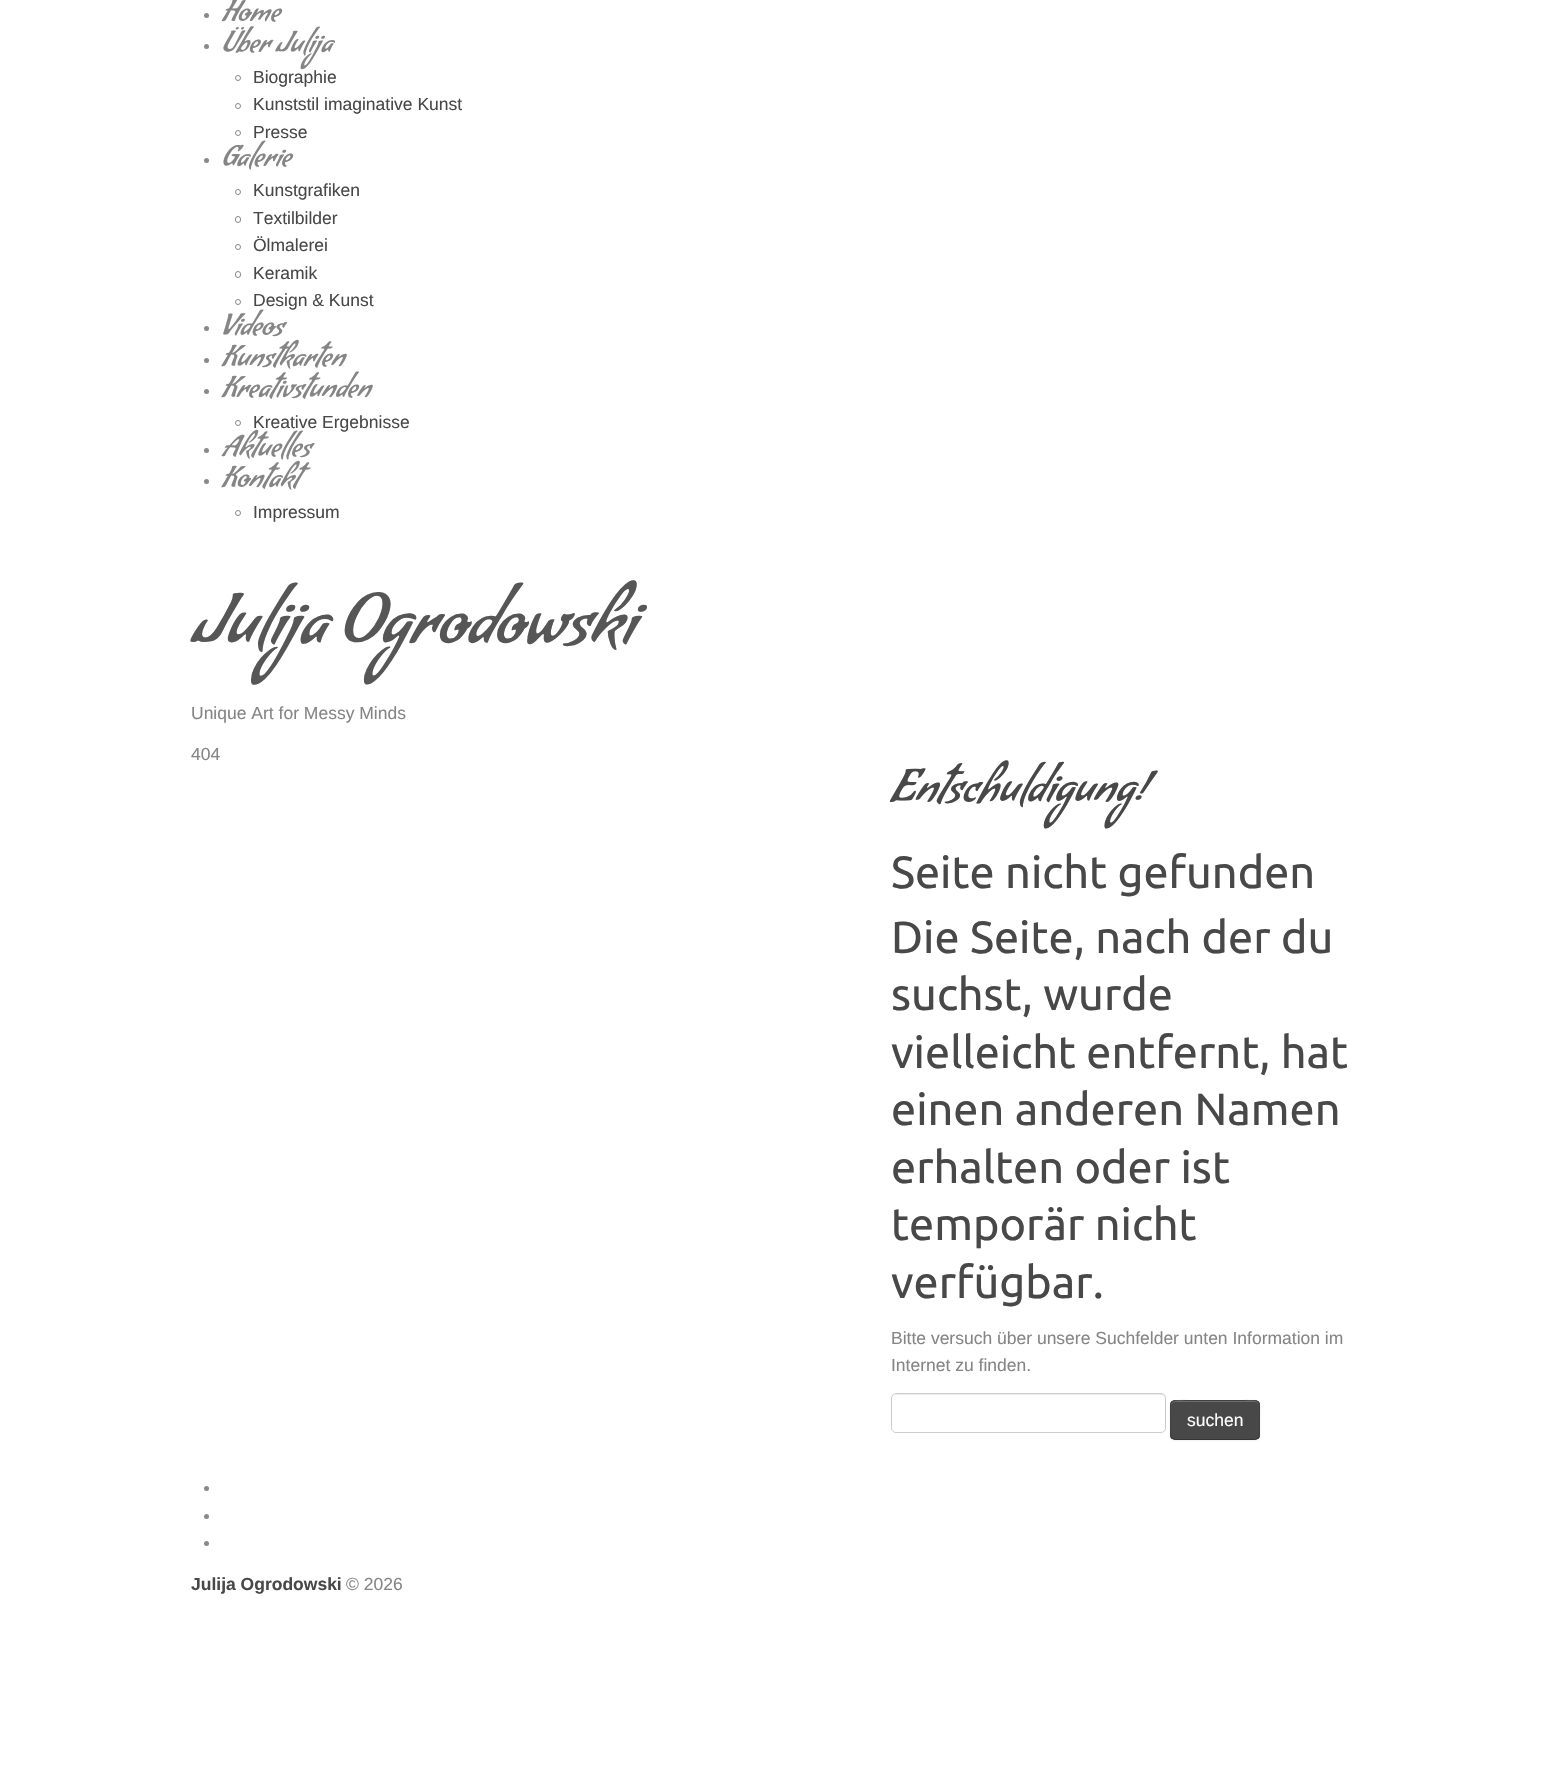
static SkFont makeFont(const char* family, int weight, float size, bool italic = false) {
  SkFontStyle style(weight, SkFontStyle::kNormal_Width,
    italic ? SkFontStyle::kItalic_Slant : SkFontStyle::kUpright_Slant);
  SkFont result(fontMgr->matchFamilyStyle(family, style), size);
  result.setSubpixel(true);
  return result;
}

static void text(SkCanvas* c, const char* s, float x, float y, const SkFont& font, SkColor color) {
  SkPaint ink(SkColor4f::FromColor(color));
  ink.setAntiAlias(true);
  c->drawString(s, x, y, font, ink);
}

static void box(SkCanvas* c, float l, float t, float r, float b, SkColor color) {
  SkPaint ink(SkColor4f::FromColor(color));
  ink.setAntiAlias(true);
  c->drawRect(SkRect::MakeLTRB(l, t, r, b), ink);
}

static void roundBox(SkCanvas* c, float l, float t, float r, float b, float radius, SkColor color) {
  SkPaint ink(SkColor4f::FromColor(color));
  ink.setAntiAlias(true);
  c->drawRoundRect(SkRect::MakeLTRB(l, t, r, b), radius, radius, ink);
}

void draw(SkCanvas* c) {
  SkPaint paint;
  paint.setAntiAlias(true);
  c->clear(0xffffffff);
  paint.setColor(0xff898989);
  c->drawCircle(206.5f, 15.5f, 2.5f, paint);
  SkFont face1 = makeFont("Condiment", 400, 28.75f);
  text(c, "Home", 222, 20, face1, 0xff858585);
  c->drawCircle(206.5f, 46.5f, 2.5f, paint);
  text(c, "Über Julija", 222, 51, face1, 0xff858585);
  paint.setStyle(SkPaint::kStroke_Style);
  paint.setStrokeWidth(1);
  c->drawCircle(238, 78, 2.5f, paint);
  SkFont face2 = makeFont("Liberation Sans", 400, 17.5f);
  text(c, "Biographie", 253, 83, face2, 0xff484848);
  c->drawCircle(238, 106, 2.5f, paint);
  text(c, "Kunststil imaginative Kunst", 253, 110, face2, 0xff484848);
  c->drawCircle(238, 133, 2.5f, paint);
  text(c, "Presse", 253, 138, face2, 0xff484848);
  paint.setStyle(SkPaint::kFill_Style);
  c->drawCircle(206.5f, 160.5f, 2.5f, paint);
  text(c, "Galerie", 222, 165, face1, 0xff858585);
  paint.setStyle(SkPaint::kStroke_Style);
  c->drawCircle(238, 192, 2.5f, paint);
  text(c, "Kunstgrafiken", 253, 196, face2, 0xff484848);
  c->drawRoundRect(SkRect::MakeLTRB(235.5f, 216.5f, 240.5f, 222.5f), 2.5f, 2.5f, paint);
  text(c, "Textilbilder", 253, 224, face2, 0xff484848);
  c->drawCircle(238, 247, 2.5f, paint);
  text(c, "Ölmalerei", 253, 251, face2, 0xff484848);
  c->drawRoundRect(SkRect::MakeLTRB(235.5f, 271.5f, 240.5f, 277.5f), 2.5f, 2.5f, paint);
  text(c, "Keramik", 253, 279, face2, 0xff484848);
  c->drawCircle(238, 302, 2.5f, paint);
  text(c, "Design & Kunst", 253, 306, face2, 0xff484848);
  paint.setStyle(SkPaint::kFill_Style);
  c->drawCircle(206.5f, 328.5f, 2.5f, paint);
  text(c, "Videos", 222, 334, face1, 0xff858585);
  c->drawCircle(206.5f, 360.5f, 2.5f, paint);
  text(c, "Kunstkarten", 222, 365, face1, 0xff858585);
  c->drawCircle(206.5f, 391.5f, 2.5f, paint);
  text(c, "Kreativstunden", 222, 396, face1, 0xff858585);
  paint.setStyle(SkPaint::kStroke_Style);
  c->drawCircle(238, 423, 2.5f, paint);
  text(c, "Kreative Ergebnisse", 253, 428, face2, 0xff484848);
  paint.setStyle(SkPaint::kFill_Style);
  c->drawCircle(206.5f, 450.5f, 2.5f, paint);
  text(c, "Aktuelles", 222, 455, face1, 0xff858585);
  c->drawCircle(206.5f, 481.5f, 2.5f, paint);
  text(c, "Kontakt", 222, 486, face1, 0xff858585);
  paint.setStyle(SkPaint::kStroke_Style);
  c->drawCircle(238, 513, 2.5f, paint);
  text(c, "Impressum", 253, 518, face2, 0xff484848);
  SkFont face3 = makeFont("Condiment", 400, 68.75f);
  text(c, "Julija Ogrodowski", 191, 641, face3, 0xff565657);
  text(c, "Unique Art for Messy Minds", 191, 719, face2, 0xff858585);
  text(c, "404", 191, 760, face2, 0xff858585);
  SkFont face4 = makeFont("Condiment", 400, 45);
  text(c, "Entschuldigung!", 891, 800, face4, 0xff484848);
  SkFont face5 = makeFont("Ubuntu", 400, 45);
  text(c, "Seite nicht gefunden", 891, 888, face5, 0xff484848);
  text(c, "Die Seite, nach der du", 891, 953, face5, 0xff484848);
  text(c, "suchst, wurde", 891, 1010, face5, 0xff484848);
  text(c, "vielleicht entfernt, hat", 891, 1068, face5, 0xff484848);
  text(c, "einen anderen Namen", 891, 1125, face5, 0xff484848);
  text(c, "erhalten oder ist", 891, 1183, face5, 0xff484848);
  text(c, "temporär nicht", 891, 1240, face5, 0xff484848);
  text(c, "verfügbar.", 891, 1298, face5, 0xff484848);
  text(c, "Bitte versuch über unsere Suchfelder unten Information im", 891, 1344, face2, 0xff858585);
  text(c, "Internet zu finden.", 891, 1371, face2, 0xff858585);
  paint.setStyle(SkPaint::kFill_Style);
  paint.setColor(0xffececec);
  c->drawPath(SkPathBuilder().moveTo(896, 1395).lineTo(1161, 1395).cubicTo(1163, 1395, 1165, 1397, 1165, 1399).lineTo(1165, 1398).cubicTo(1165, 1396, 1163, 1394, 1161, 1394).lineTo(897, 1394).cubicTo(896, 1394, 894, 1395, 894, 1396).close().detach(), paint);
  paint.setStyle(SkPaint::kStroke_Style);
  paint.setColor(0xffcccccc);
  c->drawRoundRect(SkRect::MakeLTRB(891.5f, 1393.5f, 1165.5f, 1432.5f), 4.5f, 4.5f, paint);
  paint.setStyle(SkPaint::kFill_Style);
  paint.setColor(0x0d000000);
  paint.setMaskFilter(SkMaskFilter::MakeBlur(kNormal_SkBlurStyle, 1));
  c->drawRoundRect(SkRect::MakeLTRB(1170, 1401, 1260, 1441), 5, 5, paint);
  paint.setMaskFilter(nullptr);
  roundBox(c, 1170, 1400, 1260, 1440, 5, 0xff484848);
  c->save();
  c->clipPath(SkPathBuilder().moveTo(1175, 1400).lineTo(1255, 1400).cubicTo(1258, 1400, 1260, 1402, 1260, 1405).lineTo(1260, 1435).cubicTo(1260, 1438, 1258, 1440, 1255, 1440).lineTo(1175, 1440).cubicTo(1172, 1440, 1170, 1438, 1170, 1435).lineTo(1170, 1405).cubicTo(1170, 1402, 1172, 1400, 1175, 1400).close().detach(), true);
  box(c, 1170, 1401, 1260, 1439, 0xff484848);
  c->restore();
  paint.setColor(0xff6d6d6d);
  c->drawPath(SkPathBuilder().moveTo(1175, 1402).lineTo(1255, 1402).cubicTo(1257, 1402, 1259, 1404, 1259, 1406).cubicTo(1259, 1398, 1246, 1401, 1242, 1401).lineTo(1188, 1401).cubicTo(1184, 1401, 1171, 1398, 1171, 1406).cubicTo(1171, 1404, 1173, 1402, 1175, 1402).close().detach(), paint);
  paint.setStyle(SkPaint::kStroke_Style);
  paint.setStrokeWidth(1.2f);
  paint.setColor(0x40000000);
  c->drawPath(SkPathBuilder().moveTo(1258, 1438).lineTo(1255.5f, 1439.5f).lineTo(1174.5f, 1439.5f).lineTo(1172, 1438).detach(), paint);
  paint.setColor(0x1a000000);
  c->drawPath(SkPathBuilder().moveTo(1172, 1438).cubicTo(1170, 1436, 1170.5f, 1432.5f, 1170.5f, 1430).lineTo(1170.5f, 1420).cubicTo(1170.5f, 1398.5f, 1167, 1400.5f, 1188.5f, 1400.5f).lineTo(1241.5f, 1400.5f).cubicTo(1263, 1400.5f, 1259.5f, 1398.5f, 1259.5f, 1420).lineTo(1259.5f, 1430).cubicTo(1259.5f, 1432.5f, 1260, 1436, 1258, 1438).detach(), paint);
  text(c, "suchen", 1187, 1426, face2, 0xffffffff);
  paint.setStyle(SkPaint::kFill_Style);
  paint.setColor(0xff898989);
  c->drawCircle(206.5f, 1488.5f, 2.5f, paint);
  c->drawCircle(206.5f, 1516.5f, 2.5f, paint);
  c->drawCircle(206.5f, 1543.5f, 2.5f, paint);
  SkFont face6 = makeFont("Liberation Sans", 700, 17.5f);
  text(c, "Julija Ogrodowski", 191, 1590, face6, 0xff484848);
  text(c, "© 2026", 346, 1590, face2, 0xff858585);
}
